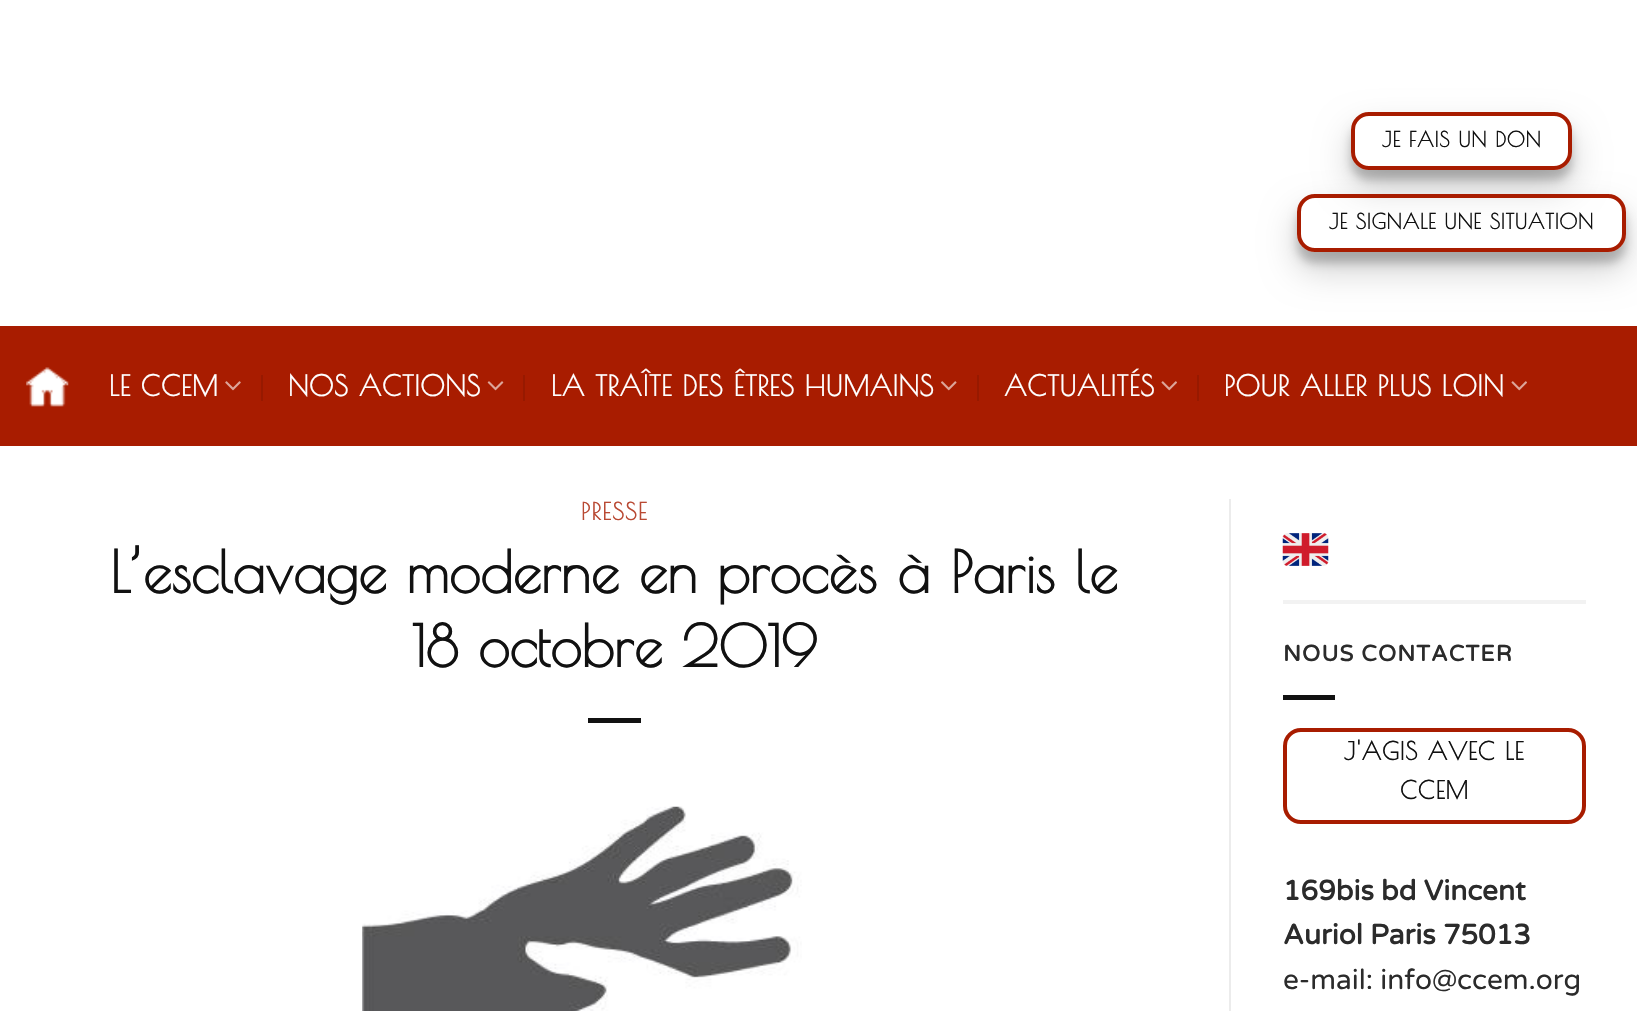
static SkFont makeFont(const char* family, int weight, float size, bool italic = false) {
  SkFontStyle style(weight, SkFontStyle::kNormal_Width,
    italic ? SkFontStyle::kItalic_Slant : SkFontStyle::kUpright_Slant);
  SkFont result(fontMgr->matchFamilyStyle(family, style), size);
  result.setSubpixel(true);
  return result;
}

static void text(SkCanvas* c, const char* s, float x, float y, const SkFont& font, SkColor color) {
  SkPaint ink(SkColor4f::FromColor(color));
  ink.setAntiAlias(true);
  c->drawString(s, x, y, font, ink);
}

static void spacedText(SkCanvas* c, const char* s, float x, float y, const SkFont& font, const SkPaint& ink, float letter, float word) {
  std::vector<SkGlyphID> glyphs(font.countText(s, strlen(s), SkTextEncoding::kUTF8));
  std::vector<float> xs(glyphs.size());
  font.textToGlyphs(s, strlen(s), SkTextEncoding::kUTF8, glyphs);
  font.getXPos(glyphs, xs, x);
  float extra = 0;
  for (size_t i = 0; i < glyphs.size(); i++) {
    xs[i] += extra;
    extra += letter + word * (glyphs[i] == font.unicharToGlyph(' '));
  }
  c->drawTextBlob(SkTextBlob::MakeFromPosHGlyphs(glyphs, xs, y, font), 0, 0, ink);
}

static void box(SkCanvas* c, float l, float t, float r, float b, SkColor color) {
  SkPaint ink(SkColor4f::FromColor(color));
  ink.setAntiAlias(true);
  c->drawRect(SkRect::MakeLTRB(l, t, r, b), ink);
}

static void picture(SkCanvas* c, const char* path, float l, float t, float r, float b) {
  auto image = SkImages::DeferredFromEncodedData(SkData::MakeFromFileName(path));
  c->drawImageRect(image, SkRect::MakeLTRB(l, t, r, b), SkSamplingOptions());
}

void draw(SkCanvas* c) {
  SkPaint paint;
  paint.setAntiAlias(true);
  c->clear(0xffffffff);
  c->save();
  c->clipPath(SkPathBuilder(SkPathFillType::kEvenOdd).moveTo(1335, 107).lineTo(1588, 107).lineTo(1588, 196).lineTo(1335, 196).close().moveTo(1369, 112).lineTo(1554, 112).cubicTo(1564, 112, 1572, 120, 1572, 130).lineTo(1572, 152).cubicTo(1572, 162, 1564, 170, 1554, 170).lineTo(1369, 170).cubicTo(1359, 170, 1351, 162, 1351, 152).lineTo(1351, 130).cubicTo(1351, 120, 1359, 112, 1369, 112).close().detach(), true);
  paint.setColor(0x38000000);
  paint.setMaskFilter(SkMaskFilter::MakeBlur(kNormal_SkBlurStyle, 5));
  c->drawRoundRect(SkRect::MakeLTRB(1351, 123, 1572, 180), 18, 18, paint);
  paint.setMaskFilter(nullptr);
  c->restore();
  c->save();
  c->clipPath(SkPathBuilder(SkPathFillType::kEvenOdd).moveTo(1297, 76).lineTo(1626, 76).lineTo(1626, 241).lineTo(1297, 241).close().moveTo(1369, 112).lineTo(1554, 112).cubicTo(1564, 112, 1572, 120, 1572, 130).lineTo(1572, 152).cubicTo(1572, 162, 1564, 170, 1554, 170).lineTo(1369, 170).cubicTo(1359, 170, 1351, 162, 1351, 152).lineTo(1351, 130).cubicTo(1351, 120, 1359, 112, 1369, 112).close().detach(), true);
  paint.setColor(0x30000000);
  paint.setMaskFilter(SkMaskFilter::MakeBlur(kNormal_SkBlurStyle, 17.5f));
  c->drawRoundRect(SkRect::MakeLTRB(1351, 130, 1572, 187), 18, 18, paint);
  paint.setMaskFilter(nullptr);
  c->restore();
  paint.setStyle(SkPaint::kStroke_Style);
  paint.setStrokeWidth(4);
  paint.setColor(0xffa81c00);
  c->drawRoundRect(SkRect::MakeLTRB(1353, 114, 1570, 168), 16, 16, paint);
  SkFont face1 = makeFont("Poiret One", 700, 20.75f);
  paint.setStyle(SkPaint::kFill_Style);
  paint.setColor(0xff111111);
  spacedText(c, "JE FAIS UN DON", 1382, 147, face1, paint, 0.7f, 0);
  c->save();
  c->clipPath(SkPathBuilder(SkPathFillType::kEvenOdd).moveTo(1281, 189).lineTo(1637, 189).lineTo(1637, 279).lineTo(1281, 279).close().moveTo(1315, 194).lineTo(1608, 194).cubicTo(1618, 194, 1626, 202, 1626, 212).lineTo(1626, 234).cubicTo(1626, 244, 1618, 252, 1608, 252).lineTo(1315, 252).cubicTo(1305, 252, 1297, 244, 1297, 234).lineTo(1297, 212).cubicTo(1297, 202, 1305, 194, 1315, 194).close().detach(), true);
  paint.setColor(0x38000000);
  paint.setMaskFilter(SkMaskFilter::MakeBlur(kNormal_SkBlurStyle, 5));
  c->drawRoundRect(SkRect::MakeLTRB(1297, 205, 1626, 263), 18, 18, paint);
  paint.setMaskFilter(nullptr);
  c->restore();
  c->save();
  c->clipPath(SkPathBuilder(SkPathFillType::kEvenOdd).moveTo(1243, 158).lineTo(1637, 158).lineTo(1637, 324).lineTo(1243, 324).close().moveTo(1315, 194).lineTo(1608, 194).cubicTo(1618, 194, 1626, 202, 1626, 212).lineTo(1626, 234).cubicTo(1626, 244, 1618, 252, 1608, 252).lineTo(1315, 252).cubicTo(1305, 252, 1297, 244, 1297, 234).lineTo(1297, 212).cubicTo(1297, 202, 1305, 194, 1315, 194).close().detach(), true);
  paint.setColor(0x30000000);
  paint.setMaskFilter(SkMaskFilter::MakeBlur(kNormal_SkBlurStyle, 17.5f));
  c->drawRoundRect(SkRect::MakeLTRB(1297, 212, 1626, 270), 18, 18, paint);
  paint.setMaskFilter(nullptr);
  c->restore();
  paint.setStyle(SkPaint::kStroke_Style);
  paint.setColor(0xffa81c00);
  c->drawRoundRect(SkRect::MakeLTRB(1299, 196, 1624, 250), 16, 16, paint);
  paint.setStyle(SkPaint::kFill_Style);
  paint.setColor(0xff111111);
  spacedText(c, "JE SIGNALE UNE SITUATION", 1329, 229, face1, paint, 0.7f, 0);
  box(c, 0, 326, 1637, 446, 0xffa81c00);
  picture(c, "img_01.png", 26, 367, 69, 407);
  SkFont face2 = makeFont("Poiret One", 700, 28);
  paint.setColor(0xffffffff);
  spacedText(c, "LE CCEM", 109, 396, face2, paint, 0.55f, 0);
  picture(c, "img_02.png", 225, 381, 241, 391);
  box(c, 261, 375, 263, 401, 0xff971900);
  spacedText(c, "NOS ACTIONS", 288, 396, face2, paint, 0.55f, 0);
  picture(c, "img_03.png", 487, 381, 504, 391);
  box(c, 523, 375, 525, 401, 0xff971900);
  spacedText(c, "LA TRAÎTE DES ÊTRES HUMAINS", 551, 396, face2, paint, 0.55f, 0);
  picture(c, "img_04.png", 941, 381, 957, 391);
  box(c, 977, 375, 979, 401, 0xff971900);
  spacedText(c, "ACTUALITÉS", 1004, 396, face2, paint, 0.55f, 0);
  picture(c, "img_05.png", 1161, 381, 1177, 391);
  box(c, 1197, 375, 1199, 401, 0xff971900);
  spacedText(c, "POUR ALLER PLUS LOIN", 1224, 396, face2, paint, 0.55f, 0);
  picture(c, "img_05.png", 1511, 381, 1527, 391);
  SkFont face3 = makeFont("Poiret One", 700, 23.5f);
  paint.setColor(0xffb94933);
  spacedText(c, "PRESSE", 581, 520, face3, paint, 1.25f, 0);
  SkFont face4 = makeFont("Poiret One", 700, 57.1f);
  text(c, "L’esclavage moderne en procès à Paris le", 110, 593, face4, 0xff111111);
  text(c, "18 octobre 2019", 412, 667, face4, 0xff111111);
  box(c, 588, 718, 641, 723, 0xff111111);
  picture(c, "img_06.png", 362, 806, 802, 1011);
  box(c, 1229, 499, 1231, 1011, 0xffececec);
  picture(c, "img_07.png", 1282, 533, 1329, 566);
  box(c, 1283, 600, 1586, 604, 0xfff2f2f2);
  SkFont face5 = makeFont("Varela Round", 700, 22.4f);
  paint.setColor(0xff2b2b2b);
  spacedText(c, "NOUS CONTACTER", 1283, 661, face5, paint, 1.1f, 0);
  box(c, 1283, 695, 1335, 700, 0xff111111);
  paint.setStyle(SkPaint::kStroke_Style);
  paint.setColor(0xffa81c00);
  c->drawRoundRect(SkRect::MakeLTRB(1285, 730, 1584, 822), 16, 16, paint);
  SkFont face6 = makeFont("Poiret One", 700, 24.5f);
  paint.setStyle(SkPaint::kFill_Style);
  paint.setColor(0xff111111);
  spacedText(c, "J'AGIS AVEC LE", 1344, 760, face6, paint, 0.75f, 0);
  spacedText(c, "CCEM", 1400, 799, face6, paint, 0.75f, 0);
  SkFont face7 = makeFont("Varela Round", 700, 28);
  text(c, "169bis bd Vincent", 1283, 900, face7, 0xff2b2b2b);
  text(c, "Auriol Paris 75013", 1283, 944, face7, 0xff2b2b2b);
  SkFont face8 = makeFont("Varela Round", 400, 28);
  text(c, "e-mail: info@ccem.org", 1283, 989, face8, 0xff2b2b2b);
}
